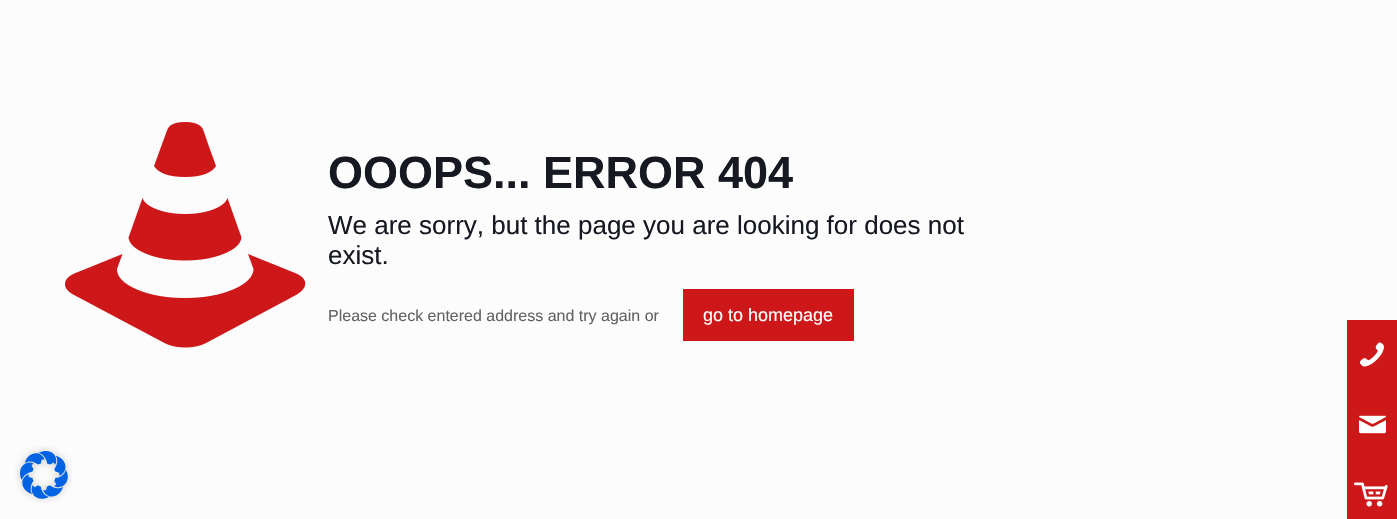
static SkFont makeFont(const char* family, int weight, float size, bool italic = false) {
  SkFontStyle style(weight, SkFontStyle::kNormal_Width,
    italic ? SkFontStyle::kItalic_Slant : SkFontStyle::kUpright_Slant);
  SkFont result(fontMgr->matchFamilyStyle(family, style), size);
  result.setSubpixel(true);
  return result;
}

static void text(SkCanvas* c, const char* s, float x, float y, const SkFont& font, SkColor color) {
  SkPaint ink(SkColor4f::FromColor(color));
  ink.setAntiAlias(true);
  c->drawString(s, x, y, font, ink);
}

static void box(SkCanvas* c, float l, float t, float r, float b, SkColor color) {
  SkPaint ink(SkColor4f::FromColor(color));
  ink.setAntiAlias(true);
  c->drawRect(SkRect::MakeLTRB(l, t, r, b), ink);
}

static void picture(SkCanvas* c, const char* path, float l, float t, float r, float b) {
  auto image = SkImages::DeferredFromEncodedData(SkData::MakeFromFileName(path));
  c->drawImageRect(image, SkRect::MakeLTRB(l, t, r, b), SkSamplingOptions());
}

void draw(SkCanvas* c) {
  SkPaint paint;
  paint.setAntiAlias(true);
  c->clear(0xfffcfcfc);
  picture(c, "img_01.png", 65, 122, 306, 348);
  SkFont face1 = makeFont("Liberation Sans", 700, 45);
  text(c, "OOOPS... ERROR 404", 328, 188, face1, 0xff161922);
  SkFont face2 = makeFont("Liberation Sans", 400, 26);
  text(c, "We are sorry, but the page you are looking for does not", 328, 234, face2, 0xff161922);
  text(c, "exist.", 328, 264, face2, 0xff161922);
  SkFont face3 = makeFont("Liberation Sans", 400, 16);
  text(c, "Please check entered address and try again or", 328, 321, face3, 0xff626262);
  box(c, 683, 289, 854, 341, 0xffcd1719);
  SkFont face4 = makeFont("Liberation Sans", 400, 18);
  text(c, "go to homepage", 703, 321, face4, 0xffffffff);
  box(c, 1347, 320, 1397, 519, 0xffcd1719);
  picture(c, "img_02.png", 1360, 342, 1384, 367);
  picture(c, "img_03.png", 1359, 415, 1386, 434);
  picture(c, "img_04.png", 1354, 482, 1388, 507);
  picture(c, "img_05.png", 15, 446, 72, 503);
}
